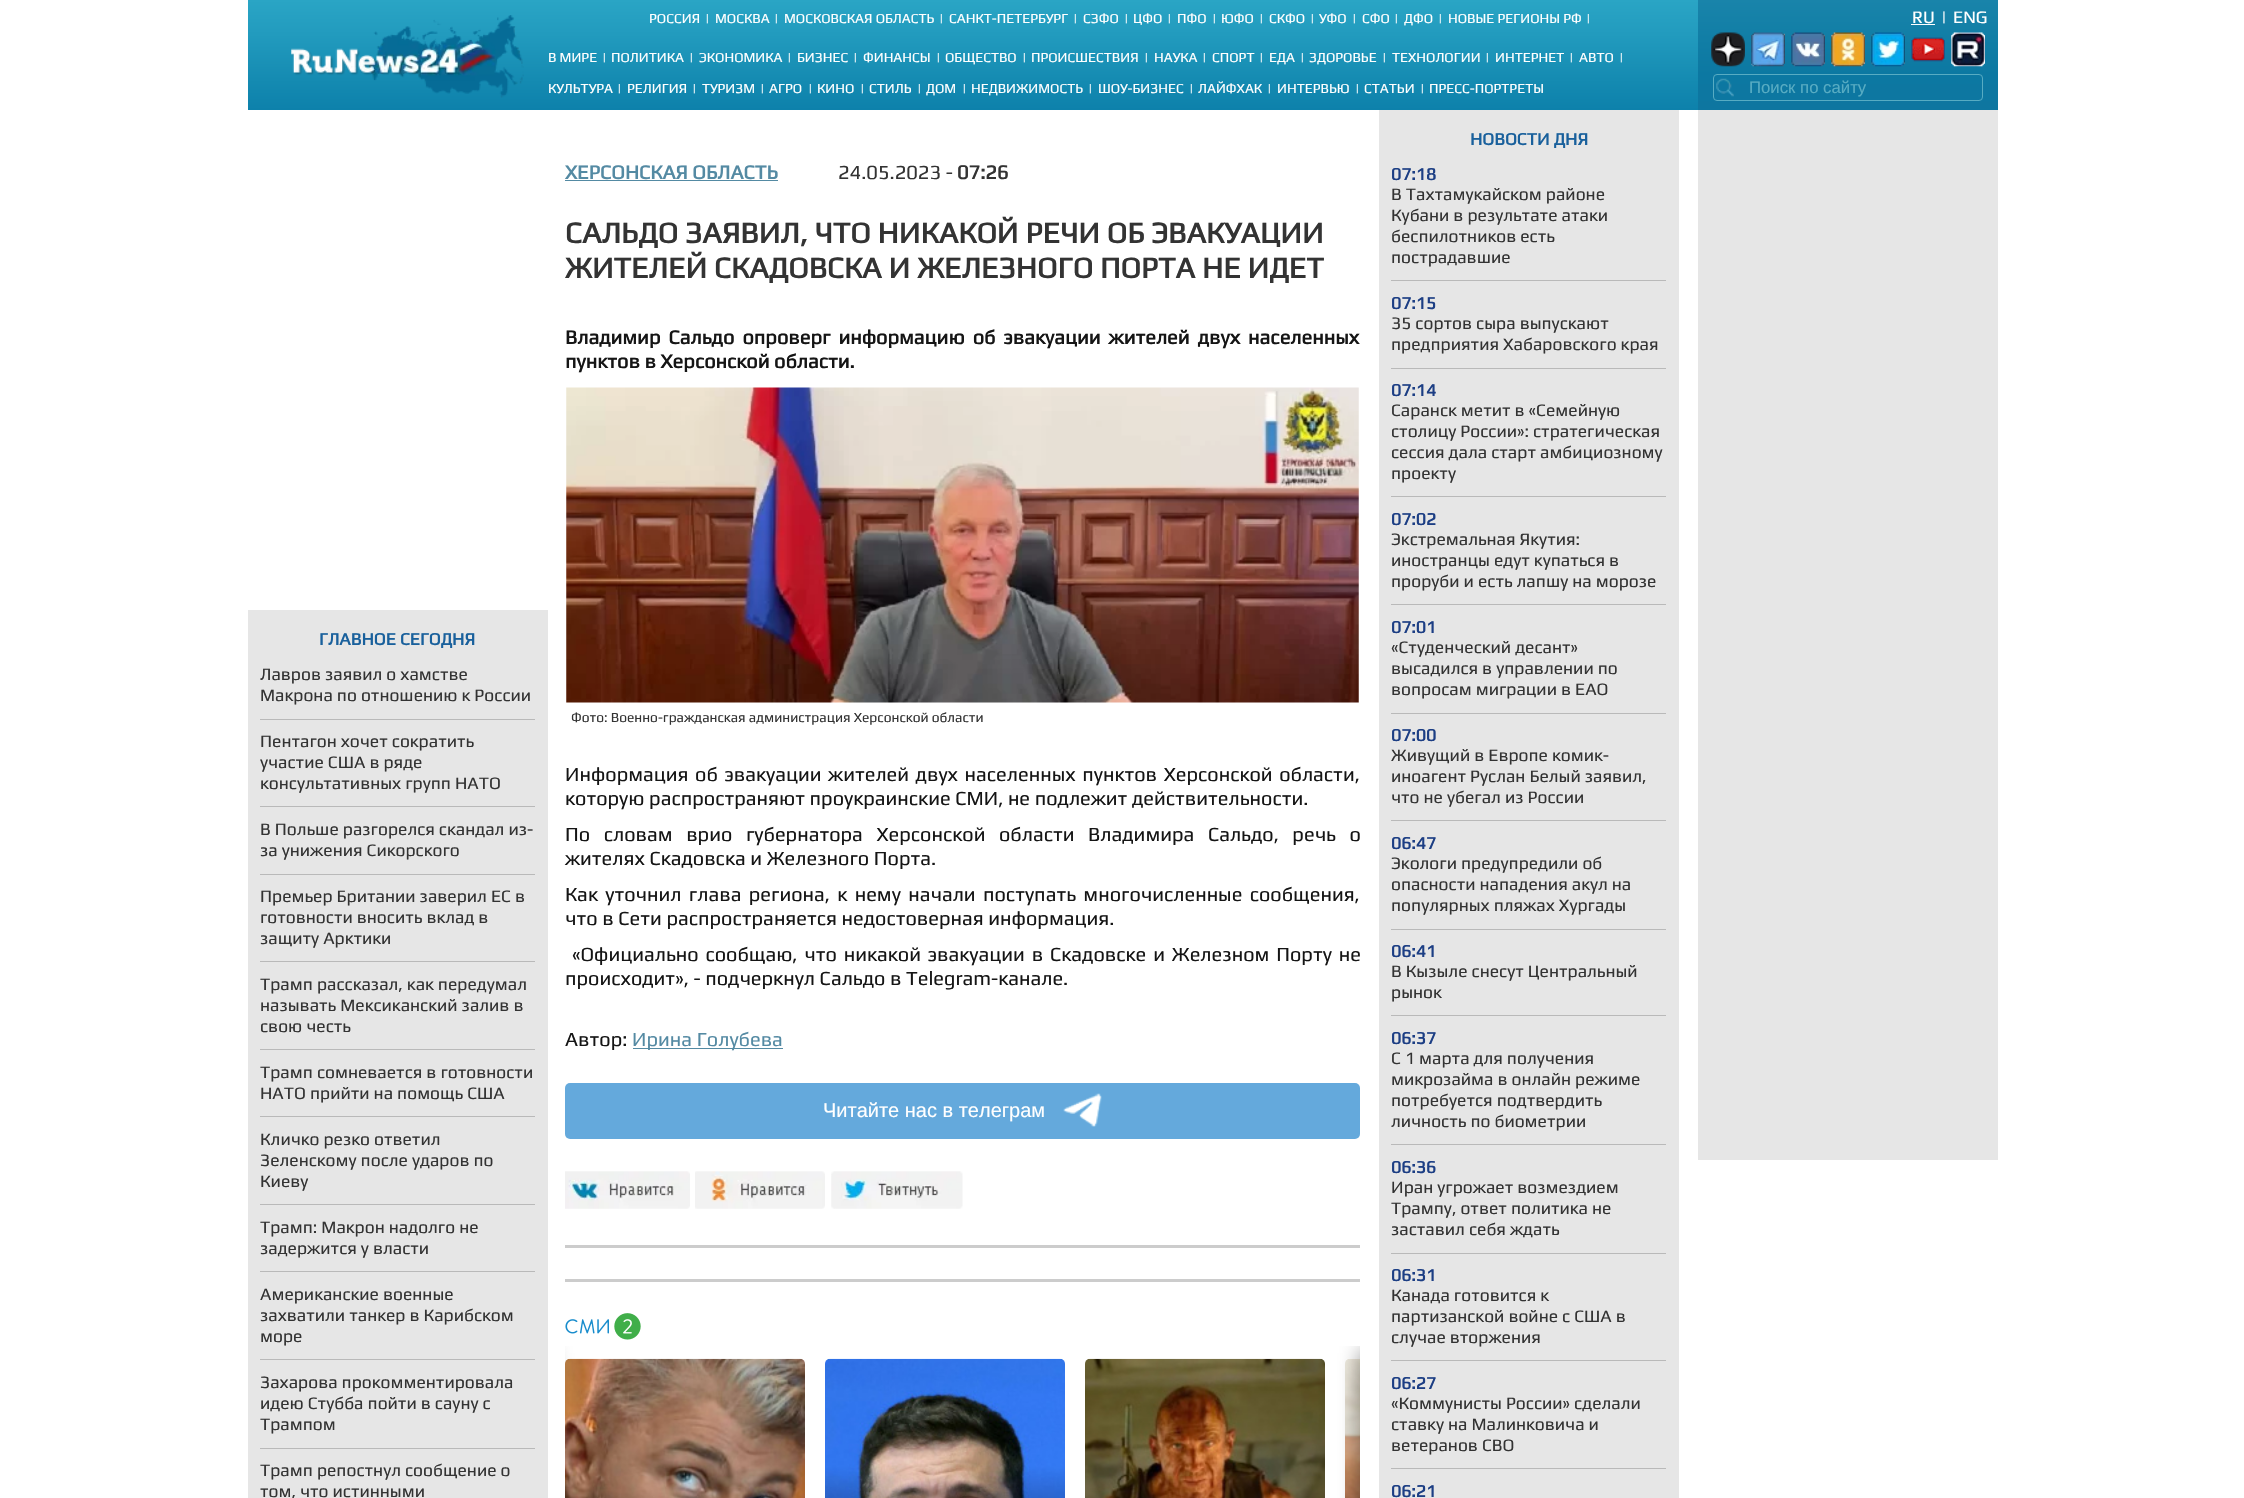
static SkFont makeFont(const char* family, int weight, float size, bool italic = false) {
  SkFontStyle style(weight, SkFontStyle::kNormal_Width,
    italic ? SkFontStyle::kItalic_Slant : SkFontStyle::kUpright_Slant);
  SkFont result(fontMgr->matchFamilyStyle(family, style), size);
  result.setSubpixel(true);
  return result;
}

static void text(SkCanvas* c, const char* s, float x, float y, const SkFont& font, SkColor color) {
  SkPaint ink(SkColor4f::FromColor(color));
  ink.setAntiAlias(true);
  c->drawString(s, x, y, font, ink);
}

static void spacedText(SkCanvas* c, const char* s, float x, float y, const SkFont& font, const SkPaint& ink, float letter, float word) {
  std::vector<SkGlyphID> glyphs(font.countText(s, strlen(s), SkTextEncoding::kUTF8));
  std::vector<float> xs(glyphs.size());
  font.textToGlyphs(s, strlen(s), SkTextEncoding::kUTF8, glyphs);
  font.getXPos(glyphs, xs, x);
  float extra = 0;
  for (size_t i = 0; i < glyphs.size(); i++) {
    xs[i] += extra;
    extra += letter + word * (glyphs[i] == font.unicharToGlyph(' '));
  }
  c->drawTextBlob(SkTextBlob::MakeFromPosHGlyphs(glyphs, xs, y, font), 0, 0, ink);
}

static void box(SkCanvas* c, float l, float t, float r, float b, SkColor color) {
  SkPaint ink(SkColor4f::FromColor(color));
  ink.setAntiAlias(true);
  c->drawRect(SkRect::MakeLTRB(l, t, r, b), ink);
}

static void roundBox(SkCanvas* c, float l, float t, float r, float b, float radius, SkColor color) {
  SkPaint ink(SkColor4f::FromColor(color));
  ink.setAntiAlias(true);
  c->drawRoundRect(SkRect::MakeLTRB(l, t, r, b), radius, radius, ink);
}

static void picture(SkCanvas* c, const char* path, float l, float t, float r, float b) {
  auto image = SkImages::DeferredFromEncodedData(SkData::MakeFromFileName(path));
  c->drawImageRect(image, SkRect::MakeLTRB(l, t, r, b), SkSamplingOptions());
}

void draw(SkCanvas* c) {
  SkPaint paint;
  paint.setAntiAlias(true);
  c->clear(0xffffffff);
  {
    const SkColor colors[] = {0xff2aa5c5, 0xff229bbe, 0xff158bb2, 0xff0d81ab};
    const float stops[] = {0, 0.31f, 0.72f, 1};
    const SkPoint ends[] = {{1123, 0}, {1123, 110}};
    paint.setShader(SkGradientShader::MakeLinear(ends, colors, stops, 4, SkTileMode::kClamp));
    paint.setAlpha(255);
  }
  c->drawRect(SkRect::MakeLTRB(248, 0, 1698, 110), paint);
  picture(c, "img_01.png", 291, 15, 524, 98);
  SkFont face1 = makeFont("Play", 400, 13.75f);
  text(c, "РОССИЯ", 649, 23, face1, 0xffffffff);
  text(c, "|", 705, 23, face1, 0xffffffff);
  text(c, "МОСКВА", 715, 23, face1, 0xffffffff);
  text(c, "|", 774, 23, face1, 0xffffffff);
  text(c, "МОСКОВСКАЯ ОБЛАСТЬ", 784, 23, face1, 0xffffffff);
  text(c, "|", 939, 23, face1, 0xffffffff);
  text(c, "САНКТ-ПЕТЕРБУРГ", 949, 23, face1, 0xffffffff);
  text(c, "|", 1073, 23, face1, 0xffffffff);
  text(c, "СЗФО", 1083, 23, face1, 0xffffffff);
  text(c, "|", 1124, 23, face1, 0xffffffff);
  text(c, "ЦФО", 1133, 23, face1, 0xffffffff);
  text(c, "|", 1167, 23, face1, 0xffffffff);
  text(c, "ПФО", 1177, 23, face1, 0xffffffff);
  text(c, "|", 1212, 23, face1, 0xffffffff);
  text(c, "ЮФО", 1221, 23, face1, 0xffffffff);
  text(c, "|", 1259, 23, face1, 0xffffffff);
  text(c, "СКФО", 1269, 23, face1, 0xffffffff);
  text(c, "|", 1310, 23, face1, 0xffffffff);
  text(c, "УФО", 1319, 23, face1, 0xffffffff);
  text(c, "|", 1352, 23, face1, 0xffffffff);
  text(c, "СФО", 1362, 23, face1, 0xffffffff);
  text(c, "|", 1394, 23, face1, 0xffffffff);
  text(c, "ДФО", 1404, 23, face1, 0xffffffff);
  text(c, "|", 1438, 23, face1, 0xffffffff);
  text(c, "НОВЫЕ РЕГИОНЫ РФ", 1448, 23, face1, 0xffffffff);
  text(c, "|", 1586, 23, face1, 0xffffffff);
  text(c, "В МИРЕ", 548, 62, face1, 0xffffffff);
  text(c, "|", 602, 62, face1, 0xffffffff);
  text(c, "ПОЛИТИКА", 611, 62, face1, 0xffffffff);
  text(c, "|", 689, 62, face1, 0xffffffff);
  text(c, "ЭКОНОМИКА", 699, 62, face1, 0xffffffff);
  text(c, "|", 787, 62, face1, 0xffffffff);
  text(c, "БИЗНЕС", 797, 62, face1, 0xffffffff);
  text(c, "|", 853, 62, face1, 0xffffffff);
  text(c, "ФИНАНСЫ", 863, 62, face1, 0xffffffff);
  text(c, "|", 936, 62, face1, 0xffffffff);
  text(c, "ОБЩЕСТВО", 945, 62, face1, 0xffffffff);
  text(c, "|", 1022, 62, face1, 0xffffffff);
  text(c, "ПРОИСШЕСТВИЯ", 1031, 62, face1, 0xffffffff);
  text(c, "|", 1144, 62, face1, 0xffffffff);
  text(c, "НАУКА", 1154, 62, face1, 0xffffffff);
  text(c, "|", 1202, 62, face1, 0xffffffff);
  text(c, "СПОРТ", 1212, 62, face1, 0xffffffff);
  text(c, "|", 1259, 62, face1, 0xffffffff);
  text(c, "ЕДА", 1269, 62, face1, 0xffffffff);
  text(c, "|", 1300, 62, face1, 0xffffffff);
  text(c, "ЗДОРОВЬЕ", 1309, 62, face1, 0xffffffff);
  text(c, "|", 1382, 62, face1, 0xffffffff);
  text(c, "ТЕХНОЛОГИИ", 1392, 62, face1, 0xffffffff);
  text(c, "|", 1485, 62, face1, 0xffffffff);
  text(c, "ИНТЕРНЕТ", 1495, 62, face1, 0xffffffff);
  text(c, "|", 1569, 62, face1, 0xffffffff);
  text(c, "АВТО", 1579, 62, face1, 0xffffffff);
  text(c, "|", 1619, 62, face1, 0xffffffff);
  text(c, "КУЛЬТУРА", 548, 93, face1, 0xffffffff);
  text(c, "|", 617, 93, face1, 0xffffffff);
  text(c, "РЕЛИГИЯ", 627, 93, face1, 0xffffffff);
  text(c, "|", 692, 93, face1, 0xffffffff);
  text(c, "ТУРИЗМ", 702, 93, face1, 0xffffffff);
  text(c, "|", 760, 93, face1, 0xffffffff);
  text(c, "АГРО", 769, 93, face1, 0xffffffff);
  text(c, "|", 808, 93, face1, 0xffffffff);
  text(c, "КИНО", 817, 93, face1, 0xffffffff);
  text(c, "|", 860, 93, face1, 0xffffffff);
  text(c, "СТИЛЬ", 869, 93, face1, 0xffffffff);
  text(c, "|", 917, 93, face1, 0xffffffff);
  text(c, "ДОМ", 926, 93, face1, 0xffffffff);
  text(c, "|", 962, 93, face1, 0xffffffff);
  text(c, "НЕДВИЖИМОСТЬ", 971, 93, face1, 0xffffffff);
  text(c, "|", 1088, 93, face1, 0xffffffff);
  text(c, "ШОУ-БИЗНЕС", 1098, 93, face1, 0xffffffff);
  text(c, "|", 1189, 93, face1, 0xffffffff);
  text(c, "ЛАЙФХАК", 1198, 93, face1, 0xffffffff);
  text(c, "|", 1267, 93, face1, 0xffffffff);
  text(c, "ИНТЕРВЬЮ", 1277, 93, face1, 0xffffffff);
  text(c, "|", 1355, 93, face1, 0xffffffff);
  text(c, "СТАТЬИ", 1364, 93, face1, 0xffffffff);
  text(c, "|", 1420, 93, face1, 0xffffffff);
  text(c, "ПРЕСС-ПОРТРЕТЫ", 1429, 93, face1, 0xffffffff);
  {
    const SkColor colors[] = {0xff1984aa, 0xff117ea6, 0xff0c78a2, 0xff0e76a0};
    const float stops[] = {0, 0.35f, 0.68f, 1};
    const SkPoint ends[] = {{1848, 0}, {1848, 110}};
    paint.setShader(SkGradientShader::MakeLinear(ends, colors, stops, 4, SkTileMode::kClamp));
    paint.setAlpha(255);
  }
  c->drawRect(SkRect::MakeLTRB(1698, 0, 1998, 110), paint);
  SkFont face2 = makeFont("Play", 400, 17.5f);
  text(c, "RU", 1912, 23, face2, 0xffffffff);
  box(c, 1911, 24, 1935, 25, 0xffffffff);
  text(c, "|", 1941, 23, face2, 0xffffffff);
  text(c, "ENG", 1953, 23, face2, 0xffffffff);
  picture(c, "img_02.png", 1711, 32, 1745, 67);
  picture(c, "img_03.png", 1751, 32, 1785, 67);
  picture(c, "img_04.png", 1791, 32, 1825, 67);
  picture(c, "img_05.png", 1831, 32, 1865, 67);
  picture(c, "img_06.png", 1871, 32, 1905, 67);
  picture(c, "img_07.png", 1911, 37, 1945, 62);
  picture(c, "img_08.png", 1951, 32, 1985, 67);
  paint.setStyle(SkPaint::kStroke_Style);
  paint.setStrokeWidth(1);
  paint.setShader(nullptr);
  paint.setColor(0xff57acc3);
  c->drawRoundRect(SkRect::MakeLTRB(1713.5f, 74.5f, 1982.5f, 100.5f), 3.5f, 3.5f, paint);
  picture(c, "img_09.png", 1716, 78, 1734, 97);
  SkFont face3 = makeFont("Liberation Sans", 400, 16.75f);
  text(c, "Поиск по сайту", 1749, 93, face3, 0xff57acc3);
  box(c, 248, 610, 548, 1498, 0xffe6e6e6);
  SkFont face4 = makeFont("Play", 700, 17.5f);
  text(c, "ГЛАВНОЕ СЕГОДНЯ", 319, 645, face4, 0xff19609c);
  text(c, "Лавров заявил о хамстве", 260, 680, face2, 0xff333333);
  text(c, "Макрона по отношению к России", 260, 701, face2, 0xff333333);
  box(c, 260, 719, 535, 720, 0xffb9b9b9);
  text(c, "Пентагон хочет сократить", 260, 747, face2, 0xff333333);
  text(c, "участие США в ряде", 260, 768, face2, 0xff333333);
  text(c, "консультативных групп НАТО", 260, 789, face2, 0xff333333);
  box(c, 260, 806, 535, 807, 0xffb9b9b9);
  text(c, "В Польше разгорелся скандал из-", 260, 835, face2, 0xff333333);
  text(c, "за унижения Сикорского", 260, 856, face2, 0xff333333);
  box(c, 260, 874, 535, 875, 0xffb9b9b9);
  text(c, "Премьер Британии заверил ЕС в", 260, 902, face2, 0xff333333);
  text(c, "готовности вносить вклад в", 260, 923, face2, 0xff333333);
  text(c, "защиту Арктики", 260, 944, face2, 0xff333333);
  box(c, 260, 961, 535, 962, 0xffb9b9b9);
  text(c, "Трамп рассказал, как передумал", 260, 990, face2, 0xff333333);
  text(c, "называть Мексиканский залив в", 260, 1011, face2, 0xff333333);
  text(c, "свою честь", 260, 1032, face2, 0xff333333);
  box(c, 260, 1049, 535, 1050, 0xffb9b9b9);
  text(c, "Трамп сомневается в готовности", 260, 1078, face2, 0xff333333);
  text(c, "НАТО прийти на помощь США", 260, 1099, face2, 0xff333333);
  box(c, 260, 1116, 535, 1117, 0xffb9b9b9);
  text(c, "Кличко резко ответил", 260, 1145, face2, 0xff333333);
  text(c, "Зеленскому после ударов по", 260, 1166, face2, 0xff333333);
  text(c, "Киеву", 260, 1187, face2, 0xff333333);
  box(c, 260, 1204, 535, 1205, 0xffb9b9b9);
  text(c, "Трамп: Макрон надолго не", 260, 1233, face2, 0xff333333);
  text(c, "задержится у власти", 260, 1254, face2, 0xff333333);
  box(c, 260, 1271, 535, 1272, 0xffb9b9b9);
  text(c, "Американские военные", 260, 1300, face2, 0xff333333);
  text(c, "захватили танкер в Карибском", 260, 1321, face2, 0xff333333);
  text(c, "море", 260, 1342, face2, 0xff333333);
  box(c, 260, 1359, 535, 1360, 0xffb9b9b9);
  text(c, "Захарова прокомментировала", 260, 1388, face2, 0xff333333);
  text(c, "идею Стубба пойти в сауну с", 260, 1409, face2, 0xff333333);
  text(c, "Трампом", 260, 1430, face2, 0xff333333);
  box(c, 260, 1448, 535, 1449, 0xffb9b9b9);
  text(c, "Трамп репостнул сообщение о", 260, 1476, face2, 0xff333333);
  text(c, "том, что истинными", 260, 1497, face2, 0xff333333);
  box(c, 565, 1245, 1360, 1248, 0xffcccccc);
  SkFont face5 = makeFont("Play", 700, 20);
  text(c, "ХЕРСОНСКАЯ ОБЛАСТЬ", 565, 179, face5, 0xff548aa3);
  box(c, 565, 180, 778, 181, 0xff548aa3);
  SkFont face6 = makeFont("Play", 400, 20);
  text(c, "24.05.2023 -", 838, 179, face6, 0xff333333);
  text(c, "07:26", 957, 179, face5, 0xff333333);
  SkFont face7 = makeFont("Play", 700, 30);
  text(c, "САЛЬДО ЗАЯВИЛ, ЧТО НИКАКОЙ РЕЧИ ОБ ЭВАКУАЦИИ", 565, 243, face7, 0xff333333);
  text(c, "ЖИТЕЛЕЙ СКАДОВСКА И ЖЕЛЕЗНОГО ПОРТА НЕ ИДЕТ", 565, 278, face7, 0xff333333);
  paint.setStyle(SkPaint::kFill_Style);
  paint.setColor(0xff151515);
  spacedText(c, "Владимир Сальдо опроверг информацию об эвакуации жителей двух населенных", 565, 344, face5, paint, 0, 3.5f);
  text(c, "пунктов в Херсонской области.", 565, 368, face5, 0xff151515);
  picture(c, "img_10.png", 566, 387, 1359, 703);
  text(c, "Фото: Военно-гражданская администрация Херсонской области", 571, 722, face1, 0xff333333);
  spacedText(c, "Информация об эвакуации жителей двух населенных пунктов Херсонской области,", 565, 781, face6, paint, 0, 2);
  text(c, "которую распространяют проукраинские СМИ, не подлежит действительности.", 565, 805, face6, 0xff151515);
  spacedText(c, "По словам врио губернатора Херсонской области Владимира Сальдо, речь о", 565, 841, face6, paint, 0, 9);
  text(c, "жителях Скадовска и Железного Порта.", 565, 865, face6, 0xff151515);
  spacedText(c, "Как уточнил глава региона, к нему начали поступать многочисленные сообщения,", 565, 901, face6, paint, 0, 2.75f);
  text(c, "что в Сети распространяется недостоверная информация.", 565, 925, face6, 0xff151515);
  spacedText(c, "«Официально сообщаю, что никакой эвакуации в Скадовске и Железном Порту не", 572, 961, face6, paint, 0, 2.25f);
  text(c, "происходит», - подчеркнул Сальдо в Telegram-канале.", 565, 985, face6, 0xff151515);
  text(c, "Автор:", 565, 1046, face6, 0xff151515);
  box(c, 633, 1048, 783, 1049, 0xff548aa3);
  text(c, "Ирина Голубева", 632, 1046, face6, 0xff548aa3);
  roundBox(c, 565, 1083, 1360, 1139, 5, 0xff64a9dc);
  SkFont face8 = makeFont("Liberation Sans", 400, 20);
  text(c, "Читайте нас в телеграм", 823, 1117, face8, 0xffffffff);
  picture(c, "img_11.png", 1063, 1093, 1102, 1127);
  picture(c, "img_12.png", 565, 1171, 690, 1209);
  picture(c, "img_13.png", 695, 1171, 825, 1209);
  picture(c, "img_14.png", 831, 1171, 963, 1209);
  box(c, 565, 1279, 1360, 1282, 0xffcccccc);
  picture(c, "img_15.png", 565, 1313, 641, 1340);
  picture(c, "img_16.png", 565, 1358, 805, 1498);
  c->save();
  c->clipRect(SkRect::MakeLTRB(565, 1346, 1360, 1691));
  paint.setColor(0xff000000);
  paint.setMaskFilter(SkMaskFilter::MakeBlur(kNormal_SkBlurStyle, 12.5f));
  c->drawRect(SkRect::MakeLTRB(534, 1353, 546, 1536), paint);
  paint.setMaskFilter(nullptr);
  c->restore();
  picture(c, "img_17.png", 825, 1358, 1065, 1498);
  picture(c, "img_18.png", 1085, 1358, 1325, 1498);
  picture(c, "img_19.png", 1345, 1359, 1360, 1498);
  box(c, 1379, 110, 1679, 1498, 0xffe6e6e6);
  box(c, 1391, 1360, 1666, 1361, 0xffb9b9b9);
  box(c, 1391, 1468, 1666, 1469, 0xffb9b9b9);
  c->save();
  c->clipRect(SkRect::MakeLTRB(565, 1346, 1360, 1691));
  paint.setMaskFilter(SkMaskFilter::MakeBlur(kNormal_SkBlurStyle, 12.5f));
  c->drawRect(SkRect::MakeLTRB(1366, 1353, 1379, 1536), paint);
  paint.setMaskFilter(nullptr);
  c->restore();
  text(c, "НОВОСТИ ДНЯ", 1470, 145, face4, 0xff19609c);
  text(c, "07:18", 1391, 180, face4, 0xff1c3e84);
  text(c, "В Тахтамукайском районе", 1391, 200, face2, 0xff333333);
  text(c, "Кубани в результате атаки", 1391, 221, face2, 0xff333333);
  text(c, "беспилотников есть", 1391, 242, face2, 0xff333333);
  text(c, "пострадавшие", 1391, 263, face2, 0xff333333);
  box(c, 1391, 280, 1666, 281, 0xffb9b9b9);
  text(c, "07:15", 1391, 309, face4, 0xff1c3e84);
  text(c, "35 сортов сыра выпускают", 1391, 329, face2, 0xff333333);
  text(c, "предприятия Хабаровского края", 1391, 350, face2, 0xff333333);
  box(c, 1391, 368, 1666, 369, 0xffb9b9b9);
  text(c, "07:14", 1391, 396, face4, 0xff1c3e84);
  text(c, "Саранск метит в «Семейную", 1391, 416, face2, 0xff333333);
  text(c, "столицу России»: стратегическая", 1391, 437, face2, 0xff333333);
  text(c, "сессия дала старт амбициозному", 1391, 458, face2, 0xff333333);
  text(c, "проекту", 1391, 479, face2, 0xff333333);
  box(c, 1391, 496, 1666, 497, 0xffb9b9b9);
  text(c, "07:02", 1391, 525, face4, 0xff1c3e84);
  text(c, "Экстремальная Якутия:", 1391, 545, face2, 0xff333333);
  text(c, "иностранцы едут купаться в", 1391, 566, face2, 0xff333333);
  text(c, "проруби и есть лапшу на морозе", 1391, 587, face2, 0xff333333);
  box(c, 1391, 604, 1666, 605, 0xffb9b9b9);
  text(c, "07:01", 1391, 633, face4, 0xff1c3e84);
  text(c, "«Студенческий десант»", 1391, 653, face2, 0xff333333);
  text(c, "высадился в управлении по", 1391, 674, face2, 0xff333333);
  text(c, "вопросам миграции в ЕАО", 1391, 695, face2, 0xff333333);
  box(c, 1391, 713, 1666, 714, 0xffb9b9b9);
  text(c, "07:00", 1391, 741, face4, 0xff1c3e84);
  text(c, "Живущий в Европе комик-", 1391, 761, face2, 0xff333333);
  text(c, "иноагент Руслан Белый заявил,", 1391, 782, face2, 0xff333333);
  text(c, "что не убегал из России", 1391, 803, face2, 0xff333333);
  box(c, 1391, 820, 1666, 821, 0xffb9b9b9);
  text(c, "06:47", 1391, 849, face4, 0xff1c3e84);
  text(c, "Экологи предупредили об", 1391, 869, face2, 0xff333333);
  text(c, "опасности нападения акул на", 1391, 890, face2, 0xff333333);
  text(c, "популярных пляжах Хургады", 1391, 911, face2, 0xff333333);
  box(c, 1391, 929, 1666, 930, 0xffb9b9b9);
  text(c, "06:41", 1391, 957, face4, 0xff1c3e84);
  text(c, "В Кызыле снесут Центральный", 1391, 977, face2, 0xff333333);
  text(c, "рынок", 1391, 998, face2, 0xff333333);
  box(c, 1391, 1015, 1666, 1016, 0xffb9b9b9);
  text(c, "06:37", 1391, 1044, face4, 0xff1c3e84);
  text(c, "С 1 марта для получения", 1391, 1064, face2, 0xff333333);
  text(c, "микрозайма в онлайн режиме", 1391, 1085, face2, 0xff333333);
  text(c, "потребуется подтвердить", 1391, 1106, face2, 0xff333333);
  text(c, "личность по биометрии", 1391, 1127, face2, 0xff333333);
  box(c, 1391, 1144, 1666, 1145, 0xffb9b9b9);
  text(c, "06:36", 1391, 1173, face4, 0xff1c3e84);
  text(c, "Иран угрожает возмездием", 1391, 1193, face2, 0xff333333);
  text(c, "Трампу, ответ политика не", 1391, 1214, face2, 0xff333333);
  text(c, "заставил себя ждать", 1391, 1235, face2, 0xff333333);
  box(c, 1391, 1253, 1666, 1254, 0xffb9b9b9);
  text(c, "06:31", 1391, 1281, face4, 0xff1c3e84);
  text(c, "Канада готовится к", 1391, 1301, face2, 0xff333333);
  text(c, "партизанской войне с США в", 1391, 1322, face2, 0xff333333);
  text(c, "случае вторжения", 1391, 1343, face2, 0xff333333);
  text(c, "06:27", 1391, 1389, face4, 0xff1c3e84);
  text(c, "«Коммунисты России» сделали", 1391, 1409, face2, 0xff333333);
  text(c, "ставку на Малинковича и", 1391, 1430, face2, 0xff333333);
  text(c, "ветеранов СВО", 1391, 1451, face2, 0xff333333);
  text(c, "06:21", 1391, 1497, face4, 0xff1c3e84);
  box(c, 1698, 110, 1998, 1160, 0xffe6e6e6);
}
